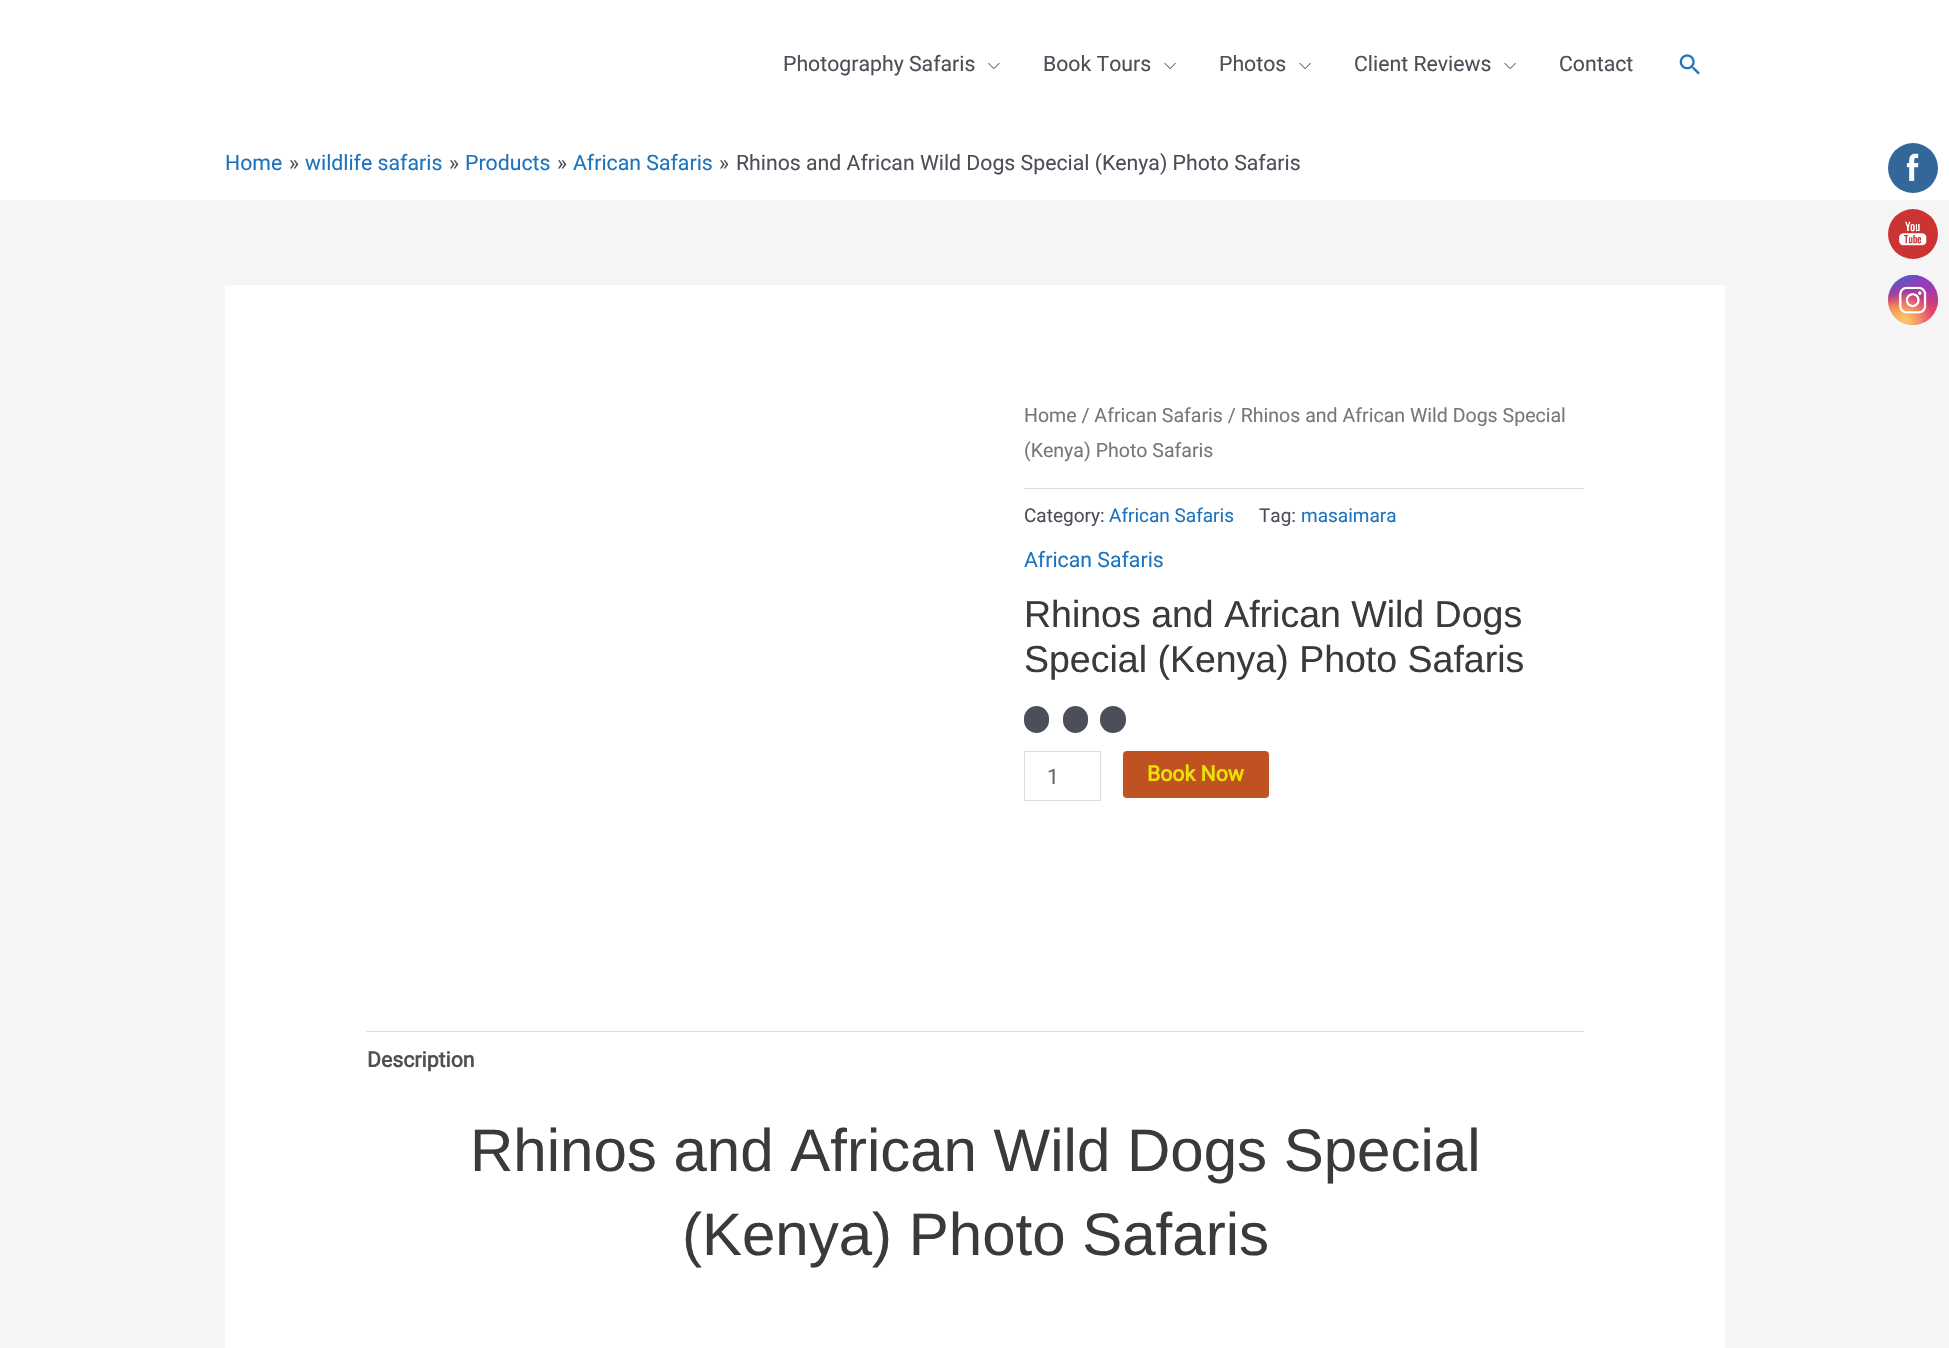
static SkFont makeFont(const char* family, int weight, float size, bool italic = false) {
  SkFontStyle style(weight, SkFontStyle::kNormal_Width,
    italic ? SkFontStyle::kItalic_Slant : SkFontStyle::kUpright_Slant);
  SkFont result(fontMgr->matchFamilyStyle(family, style), size);
  result.setSubpixel(true);
  return result;
}

static void text(SkCanvas* c, const char* s, float x, float y, const SkFont& font, SkColor color) {
  SkPaint ink(SkColor4f::FromColor(color));
  ink.setAntiAlias(true);
  c->drawString(s, x, y, font, ink);
}

static void box(SkCanvas* c, float l, float t, float r, float b, SkColor color) {
  SkPaint ink(SkColor4f::FromColor(color));
  ink.setAntiAlias(true);
  c->drawRect(SkRect::MakeLTRB(l, t, r, b), ink);
}

static void roundBox(SkCanvas* c, float l, float t, float r, float b, float radius, SkColor color) {
  SkPaint ink(SkColor4f::FromColor(color));
  ink.setAntiAlias(true);
  c->drawRoundRect(SkRect::MakeLTRB(l, t, r, b), radius, radius, ink);
}

static void picture(SkCanvas* c, const char* path, float l, float t, float r, float b) {
  auto image = SkImages::DeferredFromEncodedData(SkData::MakeFromFileName(path));
  c->drawImageRect(image, SkRect::MakeLTRB(l, t, r, b), SkSamplingOptions());
}

void draw(SkCanvas* c) {
  SkPaint paint;
  paint.setAntiAlias(true);
  c->clear(0xfff5f5f5);
  box(c, 0, 0, 1949, 200, 0xffffffff);
  SkFont face1 = makeFont("Roboto", 400, 21.25f);
  text(c, "Photography Safaris", 783, 71, face1, 0xff4b4f58);
  picture(c, "img_01.png", 988, 62, 1000, 69);
  text(c, "Book Tours", 1043, 71, face1, 0xff4b4f58);
  picture(c, "img_02.png", 1164, 62, 1176, 69);
  text(c, "Photos", 1219, 71, face1, 0xff4b4f58);
  picture(c, "img_02.png", 1299, 62, 1311, 69);
  text(c, "Client Reviews", 1354, 71, face1, 0xff4b4f58);
  picture(c, "img_02.png", 1504, 62, 1516, 69);
  text(c, "Contact", 1559, 71, face1, 0xff4b4f58);
  picture(c, "img_03.png", 1679, 54, 1700, 75);
  text(c, "Home", 225, 170, face1, 0xff1e73be);
  text(c, "»", 289, 170, face1, 0xff4b4f58);
  text(c, "wildlife safaris", 305, 170, face1, 0xff1e73be);
  text(c, "»", 449, 170, face1, 0xff4b4f58);
  text(c, "Products", 465, 170, face1, 0xff1e73be);
  text(c, "»", 557, 170, face1, 0xff4b4f58);
  text(c, "African Safaris", 573, 170, face1, 0xff1e73be);
  text(c, "»", 719, 170, face1, 0xff4b4f58);
  text(c, "Rhinos and African Wild Dogs Special (Kenya) Photo Safaris", 736, 170, face1, 0xff4b4f58);
  box(c, 225, 285, 1725, 1348, 0xffffffff);
  SkFont face2 = makeFont("Roboto", 400, 19.55f);
  text(c, "Home / African Safaris / Rhinos and African Wild Dogs Special", 1024, 422, face2, 0xff777777);
  text(c, "(Kenya) Photo Safaris", 1024, 457, face2, 0xff777777);
  box(c, 1024, 488, 1584, 489, 0xffdddddd);
  SkFont face3 = makeFont("Roboto", 400, 19);
  text(c, "Category:", 1024, 522, face3, 0xff4b4f58);
  text(c, "African Safaris", 1109, 522, face3, 0xff1e73be);
  text(c, "Tag:", 1259, 522, face3, 0xff4b4f58);
  text(c, "masaimara", 1301, 522, face3, 0xff1e73be);
  text(c, "African Safaris", 1024, 567, face1, 0xff1e73be);
  SkFont face4 = makeFont("Liberation Sans", 400, 37.5f);
  text(c, "Rhinos and African Wild Dogs", 1024, 627, face4, 0xff3a3a3a);
  text(c, "Special (Kenya) Photo Safaris", 1024, 672, face4, 0xff3a3a3a);
  roundBox(c, 1063, 706, 1088, 733, 12.5f, 0xff4b4f58);
  roundBox(c, 1024, 706, 1049, 733, 12.5f, 0xff4b4f58);
  roundBox(c, 1100, 706, 1126, 733, 13, 0xff4b4f58);
  paint.setStyle(SkPaint::kStroke_Style);
  paint.setStrokeWidth(1);
  paint.setColor(0xffdddddd);
  c->drawRect(SkRect::MakeLTRB(1024.5f, 751.5f, 1100.5f, 800.5f), paint);
  text(c, "1", 1047, 784, face1, 0xff666666);
  roundBox(c, 1123, 751, 1269, 798, 4, 0xffbf5220);
  SkFont face5 = makeFont("Roboto", 700, 21.25f);
  text(c, "Book Now", 1147, 781, face5, 0xffeae202);
  box(c, 366, 1031, 1584, 1032, 0xffdddddd);
  text(c, "Description", 367, 1067, face5, 0xff515151);
  SkFont face6 = makeFont("Liberation Sans", 400, 60);
  text(c, "Rhinos and African Wild Dogs Special", 470, 1171, face6, 0xff3a3a3a);
  text(c, "(Kenya) Photo Safaris", 682, 1255, face6, 0xff3a3a3a);
  paint.setStyle(SkPaint::kFill_Style);
  paint.setColor(0xff336699);
  c->drawCircle(1913, 168, 25, paint);
  picture(c, "img_04.png", 1906, 153, 1919, 181);
  paint.setColor(0xffcc3333);
  c->drawCircle(1913, 234, 25, paint);
  picture(c, "img_05.png", 1899, 221, 1927, 246);
  {
    const SkColor colors[] = {0xff6559ca, 0xffbc318f, 0xffe33f5f, 0xfff77638, 0xfffec66d};
    const float stops[] = {0, 0.3f, 0.5f, 0.7f, 1};
    const SkPoint ends[] = {{1913, 275}, {1913, 325}};
    paint.setShader(SkGradientShader::MakeLinear(ends, colors, stops, 5, SkTileMode::kClamp));
    paint.setAlpha(255);
  }
  c->drawCircle(1913, 300, 25, paint);
  {
    const SkColor colors[] = {0xffd9317a, 0x00d9317a};
    const float stops[] = {0, 1};
    paint.setShader(SkGradientShader::MakeRadial({1938, 325}, 71, colors, stops, 2, SkTileMode::kClamp));
    paint.setAlpha(255);
  }
  c->drawCircle(1913, 300, 25, paint);
  {
    const SkColor colors[] = {0xff893dc2, 0x00893dc2};
    const float stops[] = {0, 0.5f};
    SkMatrix m = SkMatrix::Translate(1918, 265).preScale(42, 85);
    paint.setShader(SkGradientShader::MakeRadial({0, 0}, 1, colors, stops, 2, SkTileMode::kClamp, 0, &m));
    paint.setAlpha(255);
  }
  c->drawCircle(1913, 300, 25, paint);
  {
    const SkColor colors[] = {0xff893dc2, 0x00893dc2};
    const float stops[] = {0, 0.5f};
    paint.setShader(SkGradientShader::MakeRadial({1938, 275}, 71, colors, stops, 2, SkTileMode::kClamp));
    paint.setAlpha(255);
  }
  c->drawCircle(1913, 300, 25, paint);
  {
    const SkColor colors[] = {0xff5258cf, 0x005258cf};
    const float stops[] = {0, 0.5f};
    SkMatrix m = SkMatrix::Translate(1898, 250).preScale(57, 106);
    paint.setShader(SkGradientShader::MakeRadial({0, 0}, 1, colors, stops, 2, SkTileMode::kClamp, 0, &m));
    paint.setAlpha(255);
  }
  c->drawCircle(1913, 300, 25, paint);
  {
    const SkColor colors[] = {0xff5258cf, 0x005258cf};
    const float stops[] = {0, 0.5f};
    SkMatrix m = SkMatrix::Translate(1888, 263).preScale(71, 88);
    paint.setShader(SkGradientShader::MakeRadial({0, 0}, 1, colors, stops, 2, SkTileMode::kClamp, 0, &m));
    paint.setAlpha(255);
  }
  c->drawCircle(1913, 300, 25, paint);
  {
    const SkColor colors[] = {0xfffec564, 0x00fec564};
    const float stops[] = {0, 0.5f};
    paint.setShader(SkGradientShader::MakeRadial({1888, 345}, 86, colors, stops, 2, SkTileMode::kClamp));
    paint.setAlpha(255);
  }
  c->drawCircle(1913, 300, 25, paint);
  {
    const SkColor colors[] = {0xfffec564, 0x00fec564};
    const float stops[] = {0, 0.5f};
    paint.setShader(SkGradientShader::MakeRadial({1905, 320}, 56, colors, stops, 2, SkTileMode::kClamp));
    paint.setAlpha(255);
  }
  c->drawCircle(1913, 300, 25, paint);
  picture(c, "img_06.png", 1899, 286, 1927, 314);
}
